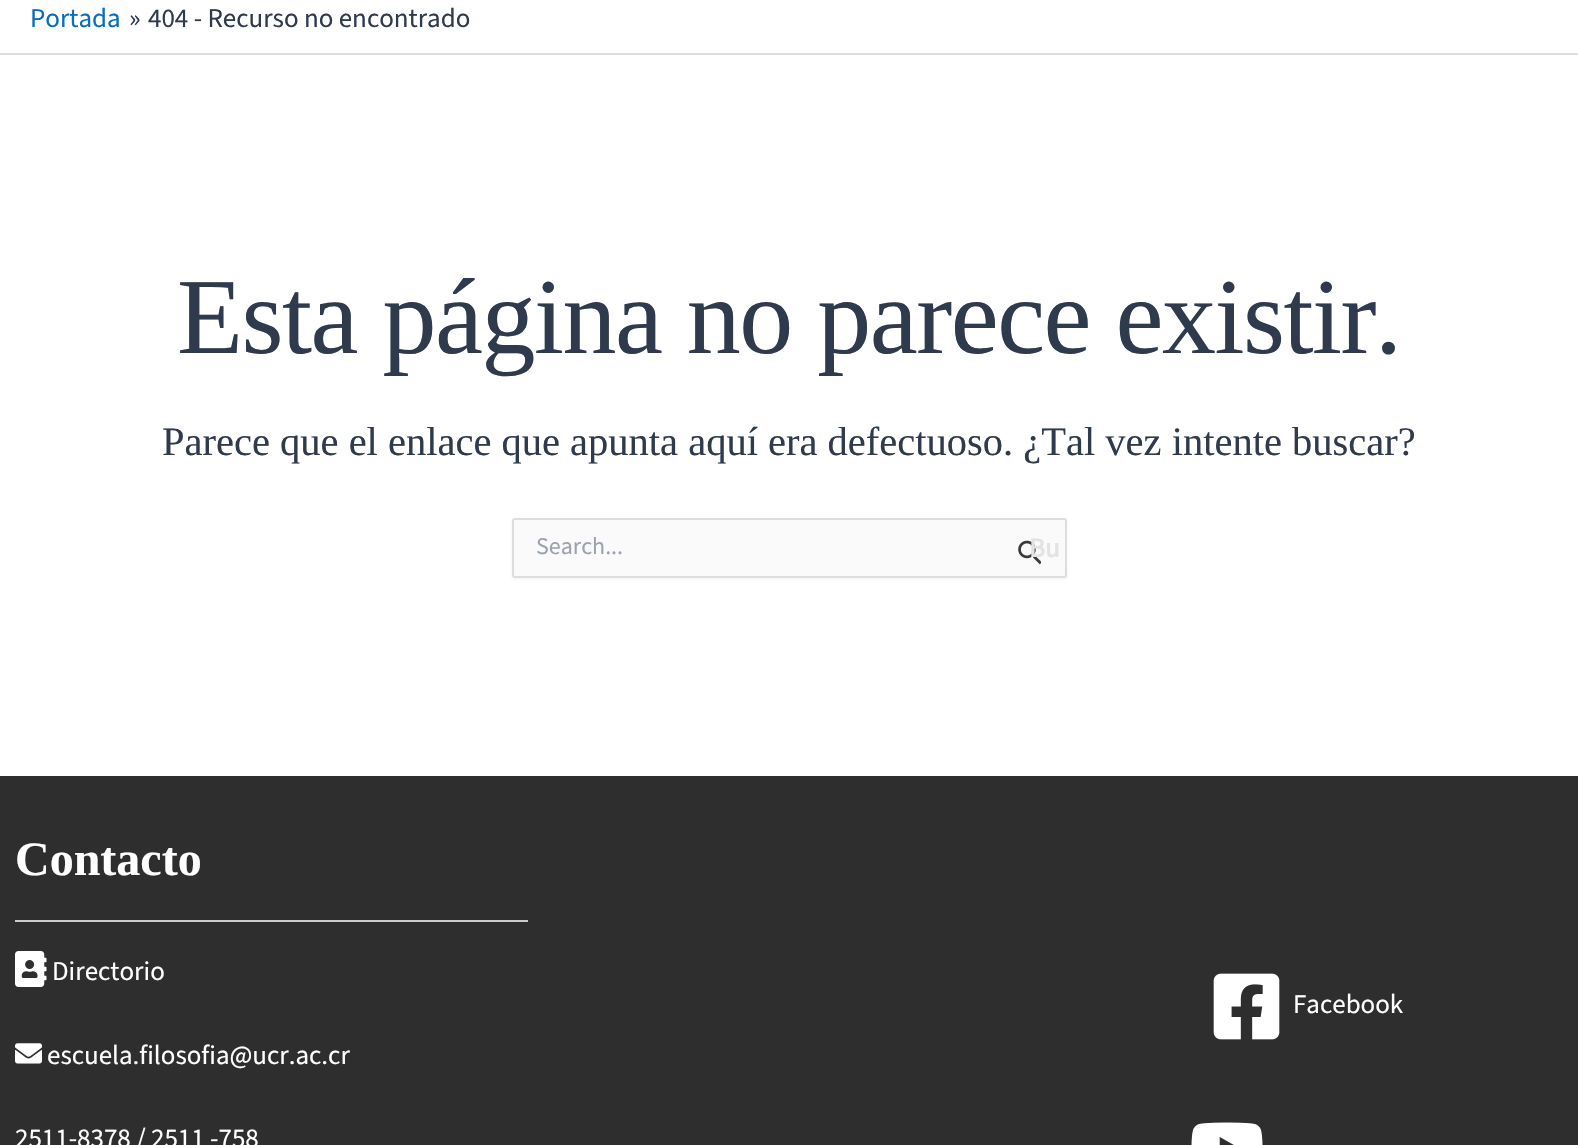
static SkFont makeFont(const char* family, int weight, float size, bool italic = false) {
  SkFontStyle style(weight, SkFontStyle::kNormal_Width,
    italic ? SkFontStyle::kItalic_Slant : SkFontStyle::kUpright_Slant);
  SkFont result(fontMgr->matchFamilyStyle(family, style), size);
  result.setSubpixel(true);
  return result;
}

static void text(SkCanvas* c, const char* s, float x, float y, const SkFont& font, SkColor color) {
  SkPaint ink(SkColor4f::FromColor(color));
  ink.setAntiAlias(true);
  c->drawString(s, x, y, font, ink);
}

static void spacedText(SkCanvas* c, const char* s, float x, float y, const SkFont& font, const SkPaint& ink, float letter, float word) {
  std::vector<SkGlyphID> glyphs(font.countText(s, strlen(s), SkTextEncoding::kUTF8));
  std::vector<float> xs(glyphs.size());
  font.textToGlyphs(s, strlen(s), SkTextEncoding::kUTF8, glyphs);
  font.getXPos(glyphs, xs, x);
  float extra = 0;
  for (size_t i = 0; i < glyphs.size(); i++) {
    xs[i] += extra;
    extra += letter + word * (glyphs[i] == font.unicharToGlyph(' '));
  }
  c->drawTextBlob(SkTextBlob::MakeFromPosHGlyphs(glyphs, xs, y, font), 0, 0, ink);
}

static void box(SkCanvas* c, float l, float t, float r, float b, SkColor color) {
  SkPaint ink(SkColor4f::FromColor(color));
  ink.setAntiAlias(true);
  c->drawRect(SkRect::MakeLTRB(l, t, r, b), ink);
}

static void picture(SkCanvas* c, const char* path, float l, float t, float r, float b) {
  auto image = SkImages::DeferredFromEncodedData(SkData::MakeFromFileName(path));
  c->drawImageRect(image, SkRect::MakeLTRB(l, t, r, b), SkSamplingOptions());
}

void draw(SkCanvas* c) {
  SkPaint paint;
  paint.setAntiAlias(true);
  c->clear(0xffffffff);
  box(c, 0, 53, 1578, 55, 0xffdddddd);
  SkFont face1 = makeFont("Source Sans 3", 200, 27);
  text(c, "Portada", 30, 27, face1, 0xff086ebb);
  text(c, "»", 129, 27, face1, 0xff303a4d);
  text(c, "404 - Recurso no encontrado", 148, 27, face1, 0xff303a4d);
  SkFont face2 = makeFont("Liberation Serif", 400, 108);
  paint.setColor(0xff303a4d);
  spacedText(c, "Esta página no parece existir.", 177, 353, face2, paint, -1.5f, 0);
  SkFont face3 = makeFont("Liberation Serif", 400, 40.5f);
  text(c, "Parece que el enlace que apunta aquí era defectuoso. ¿Tal vez intente buscar?", 162, 455, face3, 0xff303a4d);
  paint.setColor(0x0d000000);
  paint.setMaskFilter(SkMaskFilter::MakeBlur(kNormal_SkBlurStyle, 1.5f));
  c->drawRoundRect(SkRect::MakeLTRB(512, 519, 1067, 579), 3, 3, paint);
  paint.setMaskFilter(nullptr);
  paint.setColor(0xfffafafa);
  c->drawRoundRect(SkRect::MakeLTRB(513, 519, 1066, 577), 2, 2, paint);
  paint.setStyle(SkPaint::kStroke_Style);
  paint.setStrokeWidth(2);
  paint.setColor(0xffdddddd);
  c->drawRoundRect(SkRect::MakeLTRB(513, 519, 1066, 577), 2, 2, paint);
  SkFont face4 = makeFont("Source Sans 3", 200, 24);
  text(c, "Search...", 536, 554, face4, 0xff9ca3af);
  picture(c, "img_01.png", 1018, 540, 1041, 565);
  SkFont face5 = makeFont("Source Sans 3", 700, 27);
  text(c, "Bu", 1029, 557, face5, 0xffe3e3e3);
  box(c, 0, 776, 1578, 1145, 0xff2e2e2e);
  SkFont face6 = makeFont("Liberation Serif", 700, 48);
  text(c, "Contacto", 15, 875, face6, 0xffffffff);
  box(c, 15, 920, 528, 922, 0xffcccccc);
  picture(c, "img_02.png", 15, 951, 47, 987);
  text(c, "Directorio", 52, 980, face1, 0xffffffff);
  picture(c, "img_03.png", 15, 1043, 42, 1064);
  text(c, "escuela.filosofia@ucr.ac.cr", 47, 1064, face1, 0xffffffff);
  text(c, "2511-8378 / 2511 -758", 15, 1147, face1, 0xffffffff);
  picture(c, "img_04.png", 1213, 973, 1280, 1040);
  text(c, "Facebook", 1293, 1013, face1, 0xffffffff);
  picture(c, "img_05.png", 1191, 1122, 1263, 1145);
}
